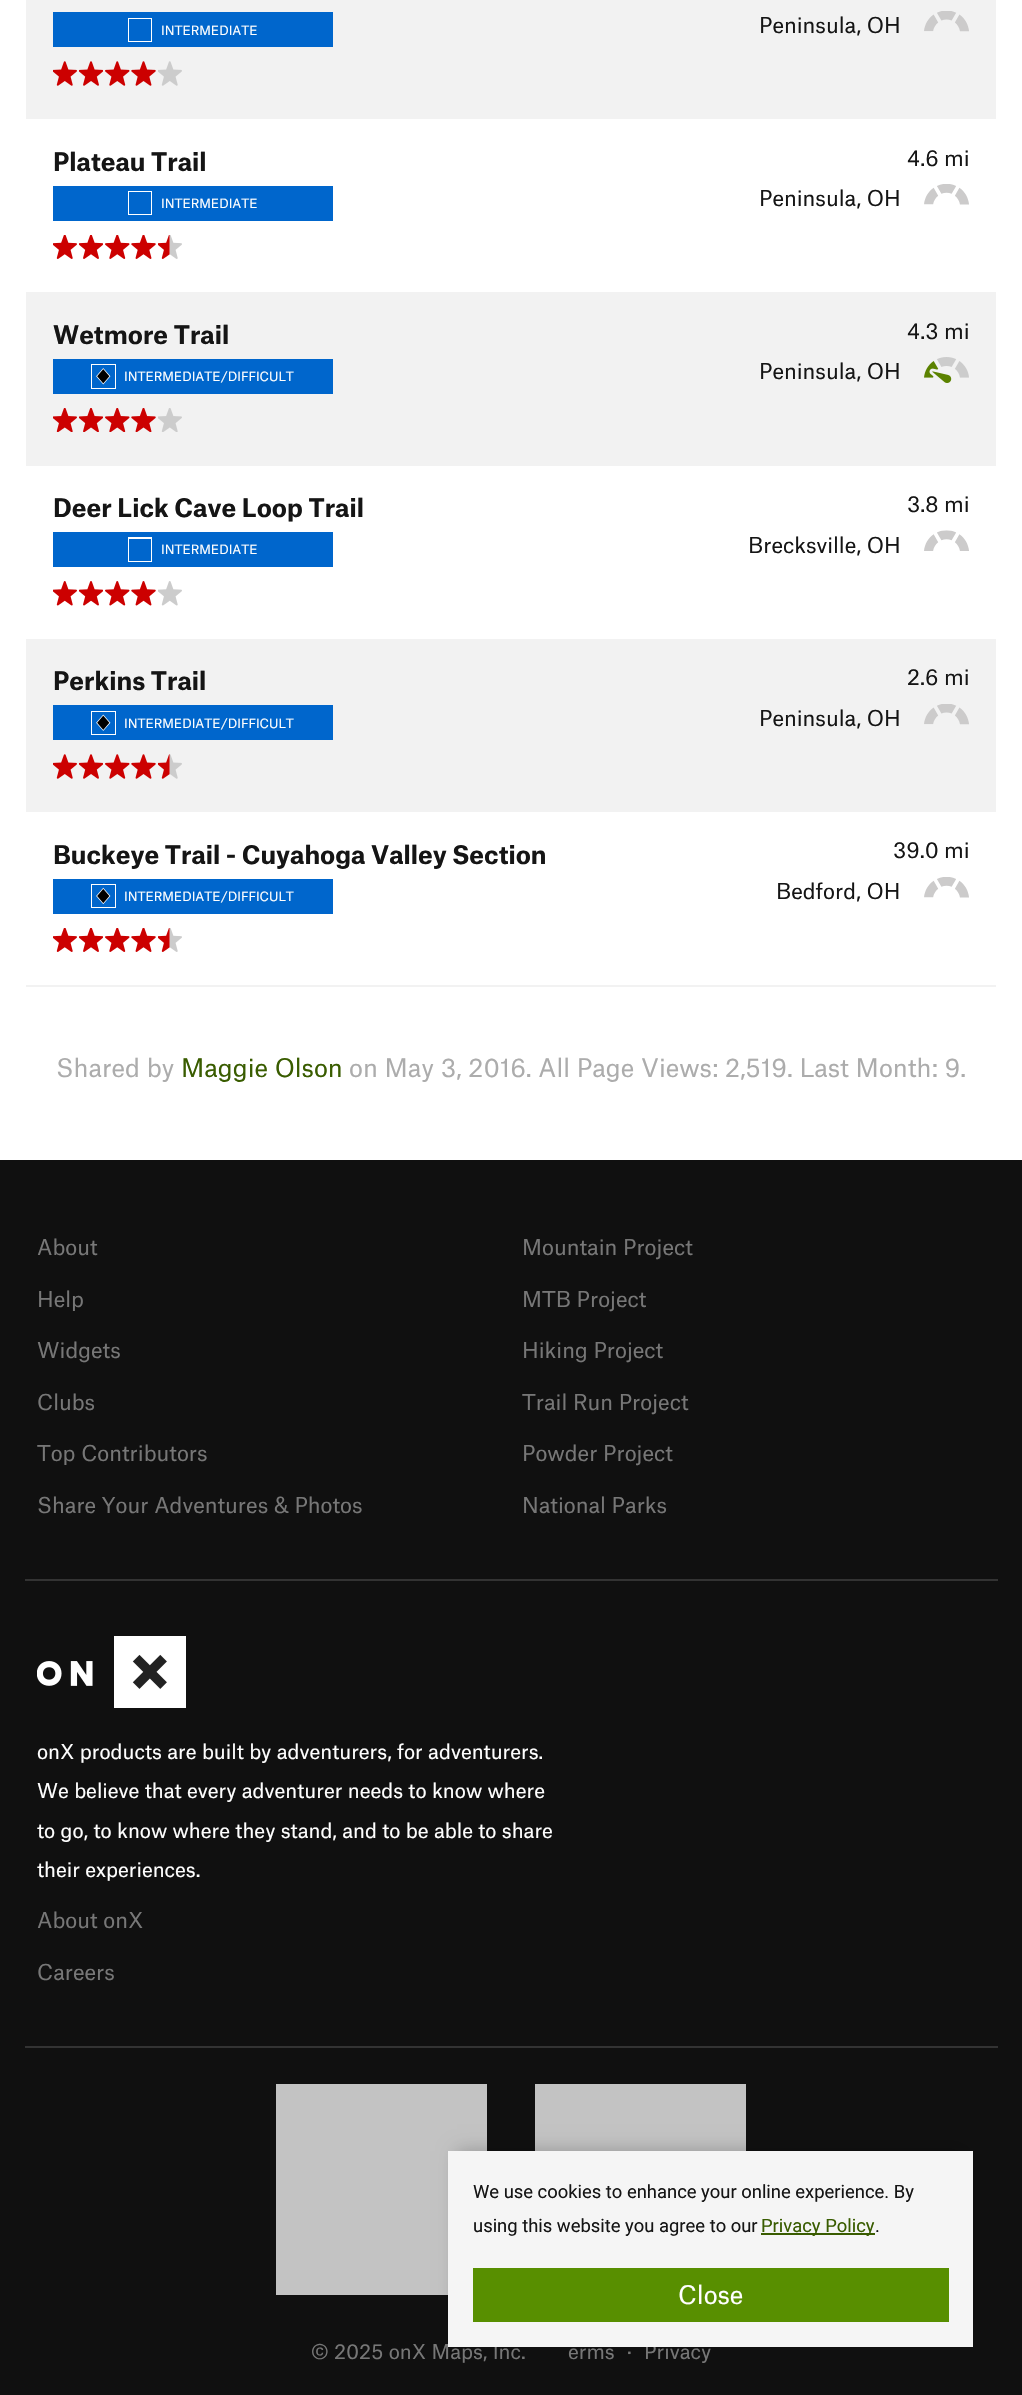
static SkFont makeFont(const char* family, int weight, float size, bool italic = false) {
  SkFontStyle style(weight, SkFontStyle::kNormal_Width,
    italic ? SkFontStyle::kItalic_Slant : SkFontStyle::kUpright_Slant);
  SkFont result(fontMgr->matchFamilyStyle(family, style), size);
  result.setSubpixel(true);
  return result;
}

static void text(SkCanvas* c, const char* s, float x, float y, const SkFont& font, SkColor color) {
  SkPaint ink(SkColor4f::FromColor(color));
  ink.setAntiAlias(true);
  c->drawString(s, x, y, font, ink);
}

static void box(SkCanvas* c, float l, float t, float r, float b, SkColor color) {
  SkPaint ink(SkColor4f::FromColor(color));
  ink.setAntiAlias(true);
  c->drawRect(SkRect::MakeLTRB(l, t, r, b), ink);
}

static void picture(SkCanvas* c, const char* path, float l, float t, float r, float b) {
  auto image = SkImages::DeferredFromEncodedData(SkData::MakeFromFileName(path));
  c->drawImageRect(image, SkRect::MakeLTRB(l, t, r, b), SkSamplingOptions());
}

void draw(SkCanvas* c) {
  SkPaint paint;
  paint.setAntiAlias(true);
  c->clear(0xffffffff);
  box(c, 26, 985, 996, 987, 0xfff2f2f2);
  box(c, 26, 0, 996, 119, 0xfff2f2f2);
  box(c, 53, 12, 333, 47, 0xff0066cc);
  box(c, 128, 18, 152, 42, 0xffffffff);
  box(c, 129, 19, 151, 41, 0xff0066cc);
  SkFont face1 = makeFont("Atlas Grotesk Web", 400, 12.25f);
  text(c, "INTERMEDIATE", 161, 35, face1, 0xffffffff);
  SkFont face2 = makeFont("Atlas Grotesk Web", 400, 21);
  text(c, "Peninsula, OH", 759, 33, face2, 0xff151515);
  picture(c, "img_01.png", 924, 11, 969, 32);
  picture(c, "img_02.png", 53, 61, 77, 86);
  picture(c, "img_03.png", 79, 61, 103, 86);
  picture(c, "img_04.png", 105, 61, 130, 86);
  picture(c, "img_05.png", 131, 61, 156, 86);
  picture(c, "img_06.png", 158, 61, 182, 86);
  SkFont face3 = makeFont("Atlas Grotesk Web", 700, 24.5f);
  text(c, "Plateau Trail", 53, 171, face3, 0xff151515);
  text(c, "4.6", 907, 166, face2, 0xff151515);
  text(c, "mi", 944, 166, face2, 0xff151515);
  box(c, 53, 186, 333, 221, 0xff0066cc);
  box(c, 128, 191, 152, 215, 0xffffffff);
  box(c, 129, 192, 151, 214, 0xff0066cc);
  text(c, "INTERMEDIATE", 161, 208, face1, 0xffffffff);
  text(c, "Peninsula, OH", 759, 206, face2, 0xff151515);
  picture(c, "img_07.png", 924, 184, 969, 205);
  picture(c, "img_08.png", 53, 235, 77, 259);
  picture(c, "img_09.png", 79, 235, 103, 259);
  picture(c, "img_10.png", 105, 235, 130, 259);
  picture(c, "img_11.png", 131, 235, 156, 259);
  picture(c, "img_12.png", 158, 235, 182, 259);
  box(c, 26, 292, 996, 466, 0xfff2f2f2);
  text(c, "Wetmore Trail", 53, 344, face3, 0xff151515);
  text(c, "4.3", 907, 339, face2, 0xff151515);
  text(c, "mi", 944, 339, face2, 0xff151515);
  box(c, 53, 359, 333, 394, 0xff0066cc);
  picture(c, "img_13.png", 91, 364, 116, 389);
  text(c, "INTERMEDIATE/DIFFICULT", 124, 381, face1, 0xffffffff);
  text(c, "Peninsula, OH", 759, 379, face2, 0xff151515);
  picture(c, "img_14.png", 924, 357, 969, 383);
  picture(c, "img_15.png", 53, 408, 77, 432);
  picture(c, "img_16.png", 79, 408, 103, 432);
  picture(c, "img_17.png", 105, 408, 130, 432);
  picture(c, "img_18.png", 131, 408, 156, 432);
  picture(c, "img_19.png", 158, 408, 182, 432);
  text(c, "Deer Lick Cave Loop Trail", 53, 517, face3, 0xff151515);
  text(c, "3.8", 907, 512, face2, 0xff151515);
  text(c, "mi", 944, 512, face2, 0xff151515);
  box(c, 53, 532, 333, 567, 0xff0066cc);
  box(c, 128, 537, 152, 562, 0xffffffff);
  box(c, 129, 539, 151, 561, 0xff0066cc);
  text(c, "INTERMEDIATE", 161, 554, face1, 0xffffffff);
  text(c, "Brecksville, OH", 748, 553, face2, 0xff151515);
  picture(c, "img_20.png", 924, 530, 969, 551);
  picture(c, "img_21.png", 53, 581, 77, 606);
  picture(c, "img_22.png", 79, 581, 103, 606);
  picture(c, "img_23.png", 105, 581, 130, 606);
  picture(c, "img_24.png", 131, 581, 156, 606);
  picture(c, "img_25.png", 158, 581, 182, 606);
  box(c, 26, 639, 996, 812, 0xfff2f2f2);
  text(c, "Perkins Trail", 53, 690, face3, 0xff151515);
  text(c, "2.6", 907, 685, face2, 0xff151515);
  text(c, "mi", 944, 685, face2, 0xff151515);
  box(c, 53, 705, 333, 740, 0xff0066cc);
  picture(c, "img_26.png", 91, 711, 116, 735);
  text(c, "INTERMEDIATE/DIFFICULT", 124, 728, face1, 0xffffffff);
  text(c, "Peninsula, OH", 759, 726, face2, 0xff151515);
  picture(c, "img_01.png", 924, 704, 969, 725);
  picture(c, "img_02.png", 53, 754, 77, 779);
  picture(c, "img_03.png", 79, 754, 103, 779);
  picture(c, "img_04.png", 105, 754, 130, 779);
  picture(c, "img_05.png", 131, 754, 156, 779);
  picture(c, "img_27.png", 158, 754, 182, 779);
  text(c, "Buckeye Trail - Cuyahoga Valley Section", 53, 864, face3, 0xff151515);
  text(c, "39.0", 893, 858, face2, 0xff151515);
  text(c, "mi", 944, 858, face2, 0xff151515);
  box(c, 53, 879, 333, 914, 0xff0066cc);
  picture(c, "img_28.png", 91, 884, 116, 908);
  text(c, "INTERMEDIATE/DIFFICULT", 124, 901, face1, 0xffffffff);
  text(c, "Bedford, OH", 776, 899, face2, 0xff151515);
  picture(c, "img_07.png", 924, 877, 969, 898);
  picture(c, "img_08.png", 53, 928, 77, 952);
  picture(c, "img_09.png", 79, 928, 103, 952);
  picture(c, "img_10.png", 105, 928, 130, 952);
  picture(c, "img_11.png", 131, 928, 156, 952);
  picture(c, "img_12.png", 158, 928, 182, 952);
  SkFont face4 = makeFont("Atlas Grotesk Web", 400, 24.5f);
  text(c, "Shared by", 56, 1077, face4, 0xffacacac);
  text(c, "Maggie Olson", 181, 1077, face4, 0xff395c00);
  text(c, "on May 3, 2016. All Page Views: 2,519. Last Month: 9.", 349, 1077, face4, 0xffacacac);
  box(c, 0, 1160, 1022, 2395, 0xff101010);
  box(c, 25, 1579, 998, 1581, 0xff333333);
  text(c, "About", 37, 1255, face2, 0xff777777);
  text(c, "Mountain Project", 522, 1255, face2, 0xff777777);
  text(c, "Help", 37, 1307, face2, 0xff777777);
  text(c, "MTB Project", 522, 1307, face2, 0xff777777);
  text(c, "Widgets", 37, 1358, face2, 0xff777777);
  text(c, "Hiking Project", 522, 1358, face2, 0xff777777);
  text(c, "Clubs", 37, 1410, face2, 0xff777777);
  text(c, "Trail Run Project", 522, 1410, face2, 0xff777777);
  text(c, "Top Contributors", 37, 1461, face2, 0xff777777);
  text(c, "Powder Project", 522, 1461, face2, 0xff777777);
  text(c, "Share Your Adventures & Photos", 37, 1513, face2, 0xff777777);
  text(c, "National Parks", 522, 1513, face2, 0xff777777);
  box(c, 25, 2046, 998, 2048, 0xff333333);
  picture(c, "img_29.png", 37, 1636, 186, 1708);
  SkFont face5 = makeFont("Atlas Grotesk Web", 400, 19.6f);
  text(c, "onX products are built by adventurers, for adventurers.", 37, 1759, face5, 0xffffffff);
  text(c, "We believe that every adventurer needs to know where", 37, 1798, face5, 0xffffffff);
  text(c, "to go, to know where they stand, and to be able to share", 37, 1838, face5, 0xffffffff);
  text(c, "their experiences.", 37, 1877, face5, 0xffffffff);
  text(c, "About onX", 37, 1928, face2, 0xff777777);
  text(c, "Careers", 37, 1980, face2, 0xff777777);
  box(c, 276, 2084, 487, 2295, 0xffc3c3c3);
  box(c, 535, 2084, 746, 2151, 0xffc3c3c3);
  text(c, "© 2025 onX Maps, Inc.", 311, 2359, face5, 0xff777777);
  text(c, "erms", 568, 2359, face5, 0xff777777);
  text(c, "·", 627, 2359, face5, 0xff777777);
  text(c, "Privacy", 644, 2359, face5, 0xff777777);
  paint.setColor(0x40000000);
  paint.setMaskFilter(SkMaskFilter::MakeBlur(kNormal_SkBlurStyle, 9));
  c->drawRect(SkRect::MakeLTRB(457, 2151, 964, 2329), paint);
  paint.setMaskFilter(nullptr);
  box(c, 448, 2151, 973, 2347, 0xfff5f5f5);
  SkFont face6 = makeFont("Roboto", 400, 18.4f);
  text(c, "We use cookies to enhance your online experience. By", 473, 2198, face6, 0xff151515);
  text(c, "using this website you agree to our", 473, 2232, face6, 0xff151515);
  box(c, 761, 2233, 875, 2235, 0xff395c00);
  text(c, "Privacy Policy", 761, 2232, face6, 0xff395c00);
  text(c, ".", 875, 2232, face6, 0xff151515);
  box(c, 473, 2268, 949, 2322, 0xff588f00);
  text(c, "Close", 678, 2304, face4, 0xffffffff);
}
